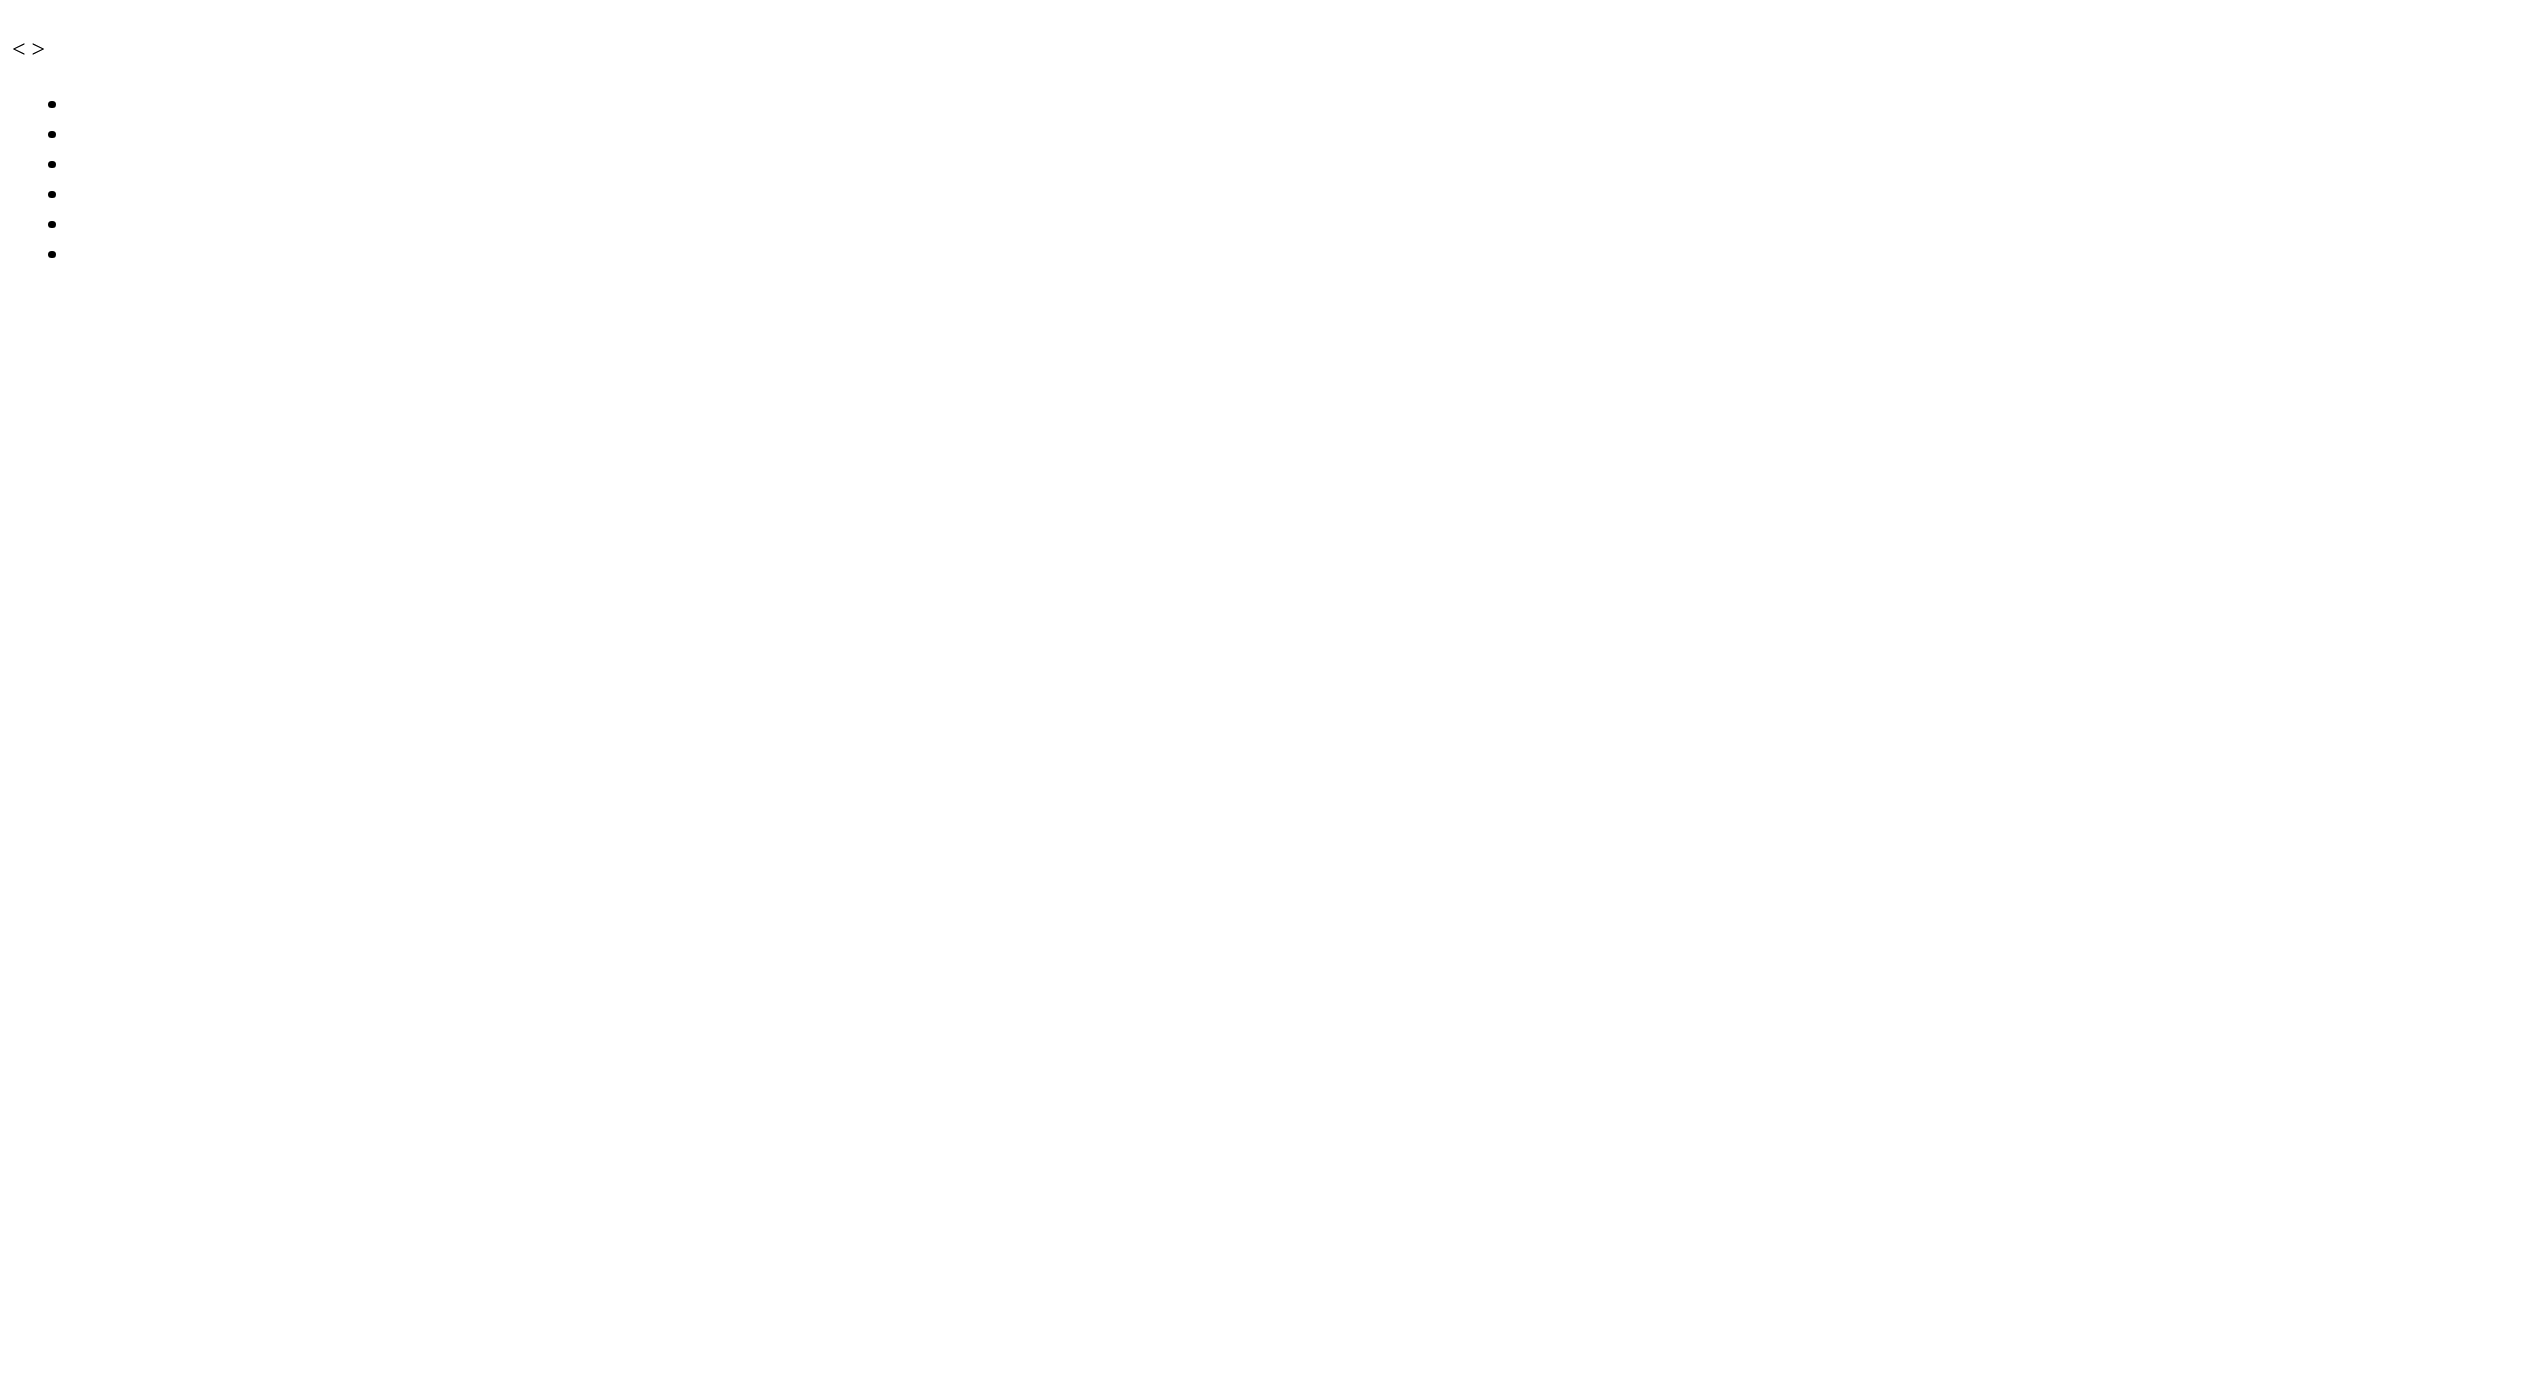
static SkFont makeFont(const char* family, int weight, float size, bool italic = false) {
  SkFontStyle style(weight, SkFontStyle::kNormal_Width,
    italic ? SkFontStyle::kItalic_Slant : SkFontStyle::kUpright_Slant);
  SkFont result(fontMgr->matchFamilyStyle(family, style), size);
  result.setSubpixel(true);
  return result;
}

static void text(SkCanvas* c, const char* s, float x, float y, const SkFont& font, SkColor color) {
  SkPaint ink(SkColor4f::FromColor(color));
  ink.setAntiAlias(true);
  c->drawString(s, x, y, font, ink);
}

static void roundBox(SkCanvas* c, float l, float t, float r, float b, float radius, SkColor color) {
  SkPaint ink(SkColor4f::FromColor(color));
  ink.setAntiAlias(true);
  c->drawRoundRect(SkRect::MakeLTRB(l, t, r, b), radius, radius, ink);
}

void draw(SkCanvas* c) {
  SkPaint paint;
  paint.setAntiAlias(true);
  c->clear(0xffffffff);
  SkFont face1 = makeFont("Liberation Serif", 400, 24);
  text(c, "< >", 12, 57, face1, 0xff000000);
  roundBox(c, 48, 101, 56, 108, 3.5f, 0xff000000);
  roundBox(c, 48, 131, 56, 138, 3.5f, 0xff000000);
  roundBox(c, 48, 161, 56, 168, 3.5f, 0xff000000);
  roundBox(c, 48, 191, 56, 198, 3.5f, 0xff000000);
  roundBox(c, 48, 221, 56, 228, 3.5f, 0xff000000);
  roundBox(c, 48, 251, 56, 258, 3.5f, 0xff000000);
}
